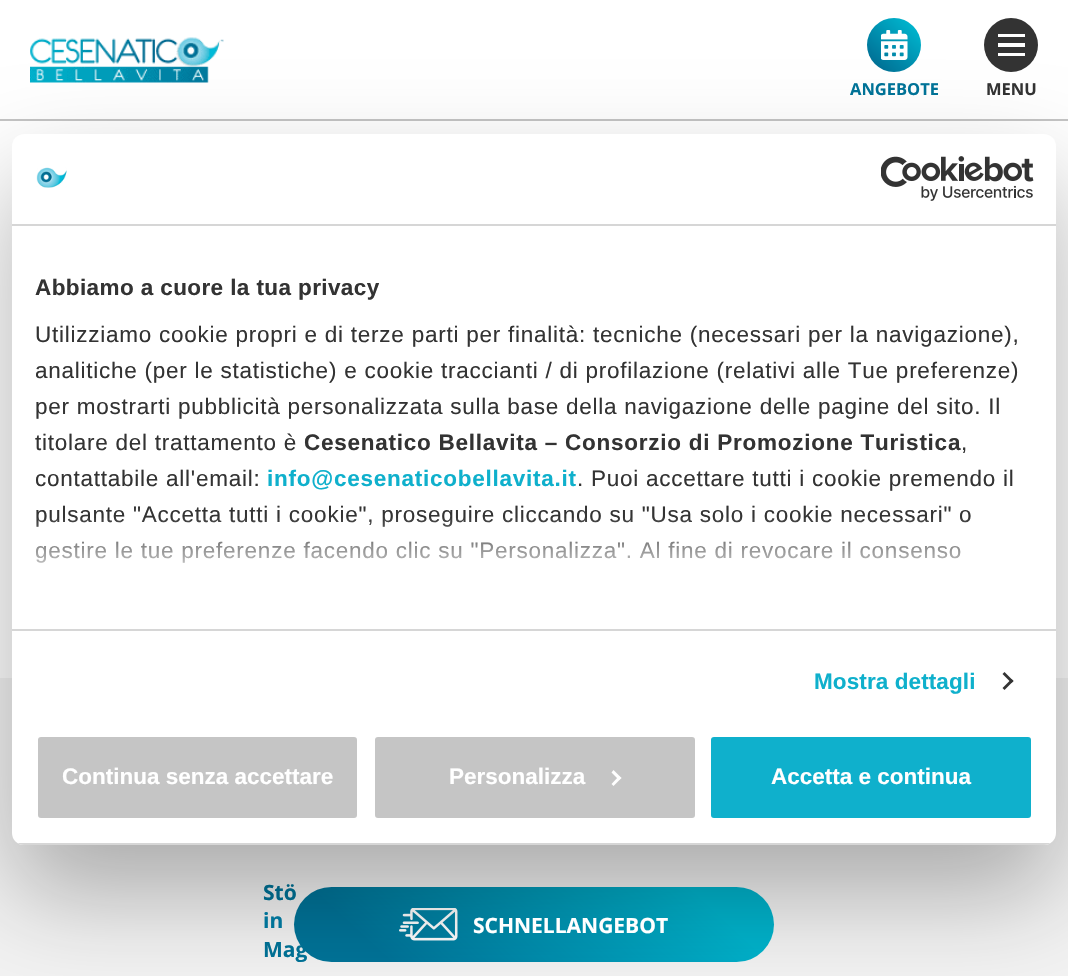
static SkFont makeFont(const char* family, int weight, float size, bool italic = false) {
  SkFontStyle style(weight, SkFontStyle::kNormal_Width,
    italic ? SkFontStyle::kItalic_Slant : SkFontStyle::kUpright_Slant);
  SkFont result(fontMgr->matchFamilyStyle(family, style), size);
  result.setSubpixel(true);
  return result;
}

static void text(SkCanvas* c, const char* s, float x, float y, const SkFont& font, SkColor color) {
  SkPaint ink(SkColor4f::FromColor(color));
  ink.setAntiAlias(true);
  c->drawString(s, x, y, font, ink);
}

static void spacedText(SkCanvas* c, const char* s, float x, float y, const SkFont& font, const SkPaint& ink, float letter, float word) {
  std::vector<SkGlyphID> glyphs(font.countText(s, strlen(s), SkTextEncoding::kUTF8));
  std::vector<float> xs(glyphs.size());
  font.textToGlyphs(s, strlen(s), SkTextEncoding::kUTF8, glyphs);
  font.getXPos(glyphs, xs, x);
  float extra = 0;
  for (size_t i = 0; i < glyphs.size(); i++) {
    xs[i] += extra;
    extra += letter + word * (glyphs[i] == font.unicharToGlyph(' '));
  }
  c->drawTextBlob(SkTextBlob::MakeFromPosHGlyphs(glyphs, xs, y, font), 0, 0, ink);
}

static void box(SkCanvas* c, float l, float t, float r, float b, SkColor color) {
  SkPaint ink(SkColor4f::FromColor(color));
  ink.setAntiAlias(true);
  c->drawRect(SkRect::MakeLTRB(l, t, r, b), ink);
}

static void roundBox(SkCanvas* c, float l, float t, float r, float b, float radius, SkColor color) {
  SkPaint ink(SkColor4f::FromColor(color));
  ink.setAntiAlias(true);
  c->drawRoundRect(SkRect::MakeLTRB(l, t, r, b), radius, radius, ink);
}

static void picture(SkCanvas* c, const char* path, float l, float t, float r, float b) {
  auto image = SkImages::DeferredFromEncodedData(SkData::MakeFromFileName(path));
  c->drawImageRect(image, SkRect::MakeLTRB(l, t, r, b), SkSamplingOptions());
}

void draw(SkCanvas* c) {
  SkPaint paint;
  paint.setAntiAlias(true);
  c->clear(0xffffffff);
  box(c, 0, 119, 1068, 121, 0xffc4c4c4);
  picture(c, "img_01.png", 30, 37, 224, 83);
  {
    const SkColor colors[] = {0xff00b3cc, 0xff007398};
    const float stops[] = {0.15f, 0.83f};
    const SkPoint ends[] = {{920, 17}, {868, 73}};
    paint.setShader(SkGradientShader::MakeLinear(ends, colors, stops, 2, SkTileMode::kClamp));
    paint.setAlpha(255);
  }
  c->drawCircle(894, 45, 27, paint);
  picture(c, "img_02.png", 881, 30, 908, 60);
  SkFont face1 = makeFont("Open Sans", 700, 16.5f);
  text(c, "ANGEBOTE", 850, 95, face1, 0xff007398);
  paint.setShader(nullptr);
  paint.setColor(0xff333333);
  c->drawCircle(1011, 45, 27, paint);
  box(c, 998, 34, 1025, 37, 0xffffffff);
  box(c, 998, 43, 1025, 47, 0xffffffff);
  box(c, 998, 53, 1025, 56, 0xffffffff);
  text(c, "MENU", 986, 95, face1, 0xff333333);
  box(c, 0, 678, 1068, 976, 0xfff3f3f3);
  SkFont face2 = makeFont("Open Sans", 700, 21);
  text(c, "Stö", 263, 900, face2, 0xff007398);
  text(c, "Mag", 263, 957, face2, 0xff007398);
  {
    const SkColor colors[] = {0xff00b3cc, 0xff007398};
    const float stops[] = {0.15f, 0.83f};
    const SkPoint ends[] = {{663, 784}, {405, 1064}};
    paint.setShader(SkGradientShader::MakeLinear(ends, colors, stops, 2, SkTileMode::kClamp));
    paint.setAlpha(255);
  }
  c->drawRoundRect(SkRect::MakeLTRB(294, 887, 774, 962), 37.5f, 37.5f, paint);
  picture(c, "img_05.png", 399, 908, 458, 941);
  paint.setShader(nullptr);
  paint.setColor(0x4d000000);
  paint.setMaskFilter(SkMaskFilter::MakeBlur(kNormal_SkBlurStyle, 51));
  c->drawRoundRect(SkRect::MakeLTRB(12, 182, 1056, 893), 12, 12, paint);
  paint.setMaskFilter(nullptr);
  roundBox(c, 12, 134, 1056, 845, 12, 0xffffffff);
  box(c, 12, 224, 1056, 226, 0xffd6d6d6);
  picture(c, "img_03.png", 36, 167, 67, 188);
  picture(c, "img_04.png", 881, 156, 1034, 201);
  box(c, 12, 629, 1056, 631, 0xffd6d6d6);
  SkFont face3 = makeFont("Liberation Sans", 700, 22.5f);
  paint.setColor(0xff333333);
  spacedText(c, "Abbiamo a cuore la tua privacy", 35, 295, face3, paint, 0.4f, 0);
  SkFont face4 = makeFont("Liberation Sans", 400, 22.5f);
  spacedText(c, "Utilizziamo cookie propri e di terze parti per finalità: tecniche (necessari per la navigazione),", 35, 342, face4, paint, 0.75f, 0);
  spacedText(c, "analitiche (per le statistiche) e cookie traccianti / di profilazione (relativi alle Tue preferenze)", 35, 378, face4, paint, 0.75f, 0);
  spacedText(c, "per mostrarti pubblicità personalizzata sulla base della navigazione delle pagine del sito. Il", 35, 414, face4, paint, 0.75f, 0);
  spacedText(c, "titolare del trattamento è", 35, 450, face4, paint, 0.75f, 0);
  spacedText(c, "Cesenatico Bellavita – Consorzio di Promozione Turistica", 304, 450, face3, paint, 0.75f, 0);
  spacedText(c, ",", 961, 450, face4, paint, 0.75f, 0);
  spacedText(c, "contattabile all'email:", 35, 486, face4, paint, 0.75f, 0);
  paint.setColor(0xff0fb0cc);
  spacedText(c, "info@cesenaticobellavita.it", 267, 486, face3, paint, 0.75f, 0);
  paint.setColor(0xff333333);
  spacedText(c, ". Puoi accettare tutti i cookie premendo il", 577, 486, face4, paint, 0.75f, 0);
  spacedText(c, "pulsante \"Accetta tutti i cookie\", proseguire cliccando su \"Usa solo i cookie necessari\" o", 35, 522, face4, paint, 0.75f, 0);
  spacedText(c, "gestire le tue preferenze facendo clic su \"Personalizza\". Al fine di revocare il consenso", 35, 558, face4, paint, 0.75f, 0);
  {
    const SkColor colors[] = {0xffffffff, 0xccffffff, 0x00ffffff};
    const float stops[] = {0, 0.5f, 1};
    const SkPoint ends[] = {{524, 629}, {524, 516}};
    paint.setShader(SkGradientShader::MakeLinear(ends, colors, stops, 3, SkTileMode::kClamp));
    paint.setAlpha(255);
  }
  c->drawRect(SkRect::MakeLTRB(35, 518, 970, 563), paint);
  paint.setShader(nullptr);
  paint.setColor(0xff0fb0cc);
  spacedText(c, "Mostra dettagli", 814, 689, face3, paint, 0.1f, 0);
  paint.setColor(0xff333333);
  c->drawPath(SkPathBuilder().moveTo(1004.5f, 672).lineTo(1013.5f, 681).lineTo(1011.5f, 683).lineTo(1002.5f, 674).close().detach(), paint);
  c->drawPath(SkPathBuilder().moveTo(1011.5f, 679).lineTo(1013.5f, 681).lineTo(1004.5f, 690).lineTo(1002.5f, 688).close().detach(), paint);
  c->save();
  c->clipPath(SkPathBuilder().moveTo(24, 134).lineTo(1044, 134).cubicTo(1050.5f, 134, 1056, 139.5f, 1056, 146).lineTo(1056, 833).cubicTo(1056, 839.5f, 1050.5f, 845, 1044, 845).lineTo(24, 845).cubicTo(17.5f, 845, 12, 839.5f, 12, 833).lineTo(12, 146).cubicTo(12, 139.5f, 17.5f, 134, 24, 134).close().detach(), true);
  box(c, 12, 843, 1056, 845, 0xffd6d6d6);
  c->restore();
  paint.setColor(0xffc5c5c5);
  c->drawRoundRect(SkRect::MakeLTRB(36.5f, 735.5f, 358.5f, 819.5f), 4.5f, 4.5f, paint);
  paint.setStyle(SkPaint::kStroke_Style);
  paint.setStrokeWidth(3);
  paint.setColor(0xffffffff);
  c->drawRoundRect(SkRect::MakeLTRB(36.5f, 735.5f, 358.5f, 819.5f), 4.5f, 4.5f, paint);
  text(c, "Continua senza accettare", 62, 784, face3, 0xffffffff);
  paint.setStyle(SkPaint::kFill_Style);
  paint.setColor(0xffc5c5c5);
  c->drawRoundRect(SkRect::MakeLTRB(373.5f, 735.5f, 696.5f, 819.5f), 4.5f, 4.5f, paint);
  paint.setStyle(SkPaint::kStroke_Style);
  paint.setColor(0xffffffff);
  c->drawRoundRect(SkRect::MakeLTRB(373.5f, 735.5f, 696.5f, 819.5f), 4.5f, 4.5f, paint);
  text(c, "Personalizza", 449, 784, face3, 0xffffffff);
  paint.setStyle(SkPaint::kFill_Style);
  c->drawPath(SkPathBuilder().moveTo(613.5f, 770).lineTo(621.5f, 778).lineTo(619, 780).lineTo(611.5f, 772.5f).close().detach(), paint);
  c->drawPath(SkPathBuilder().moveTo(619, 776).lineTo(621.5f, 778).lineTo(613.5f, 786).lineTo(611.5f, 784).close().detach(), paint);
  paint.setColor(0xff0fb0cc);
  c->drawRoundRect(SkRect::MakeLTRB(709.5f, 735.5f, 1032.5f, 819.5f), 4.5f, 4.5f, paint);
  paint.setStyle(SkPaint::kStroke_Style);
  paint.setColor(0xffffffff);
  c->drawRoundRect(SkRect::MakeLTRB(709.5f, 735.5f, 1032.5f, 819.5f), 4.5f, 4.5f, paint);
  text(c, "Accetta e continua", 771, 784, face3, 0xffffffff);
  text(c, "in", 263, 928, face2, 0xff007398);
  text(c, "SCHNELLANGEBOT", 473, 933, face2, 0xffffffff);
}
